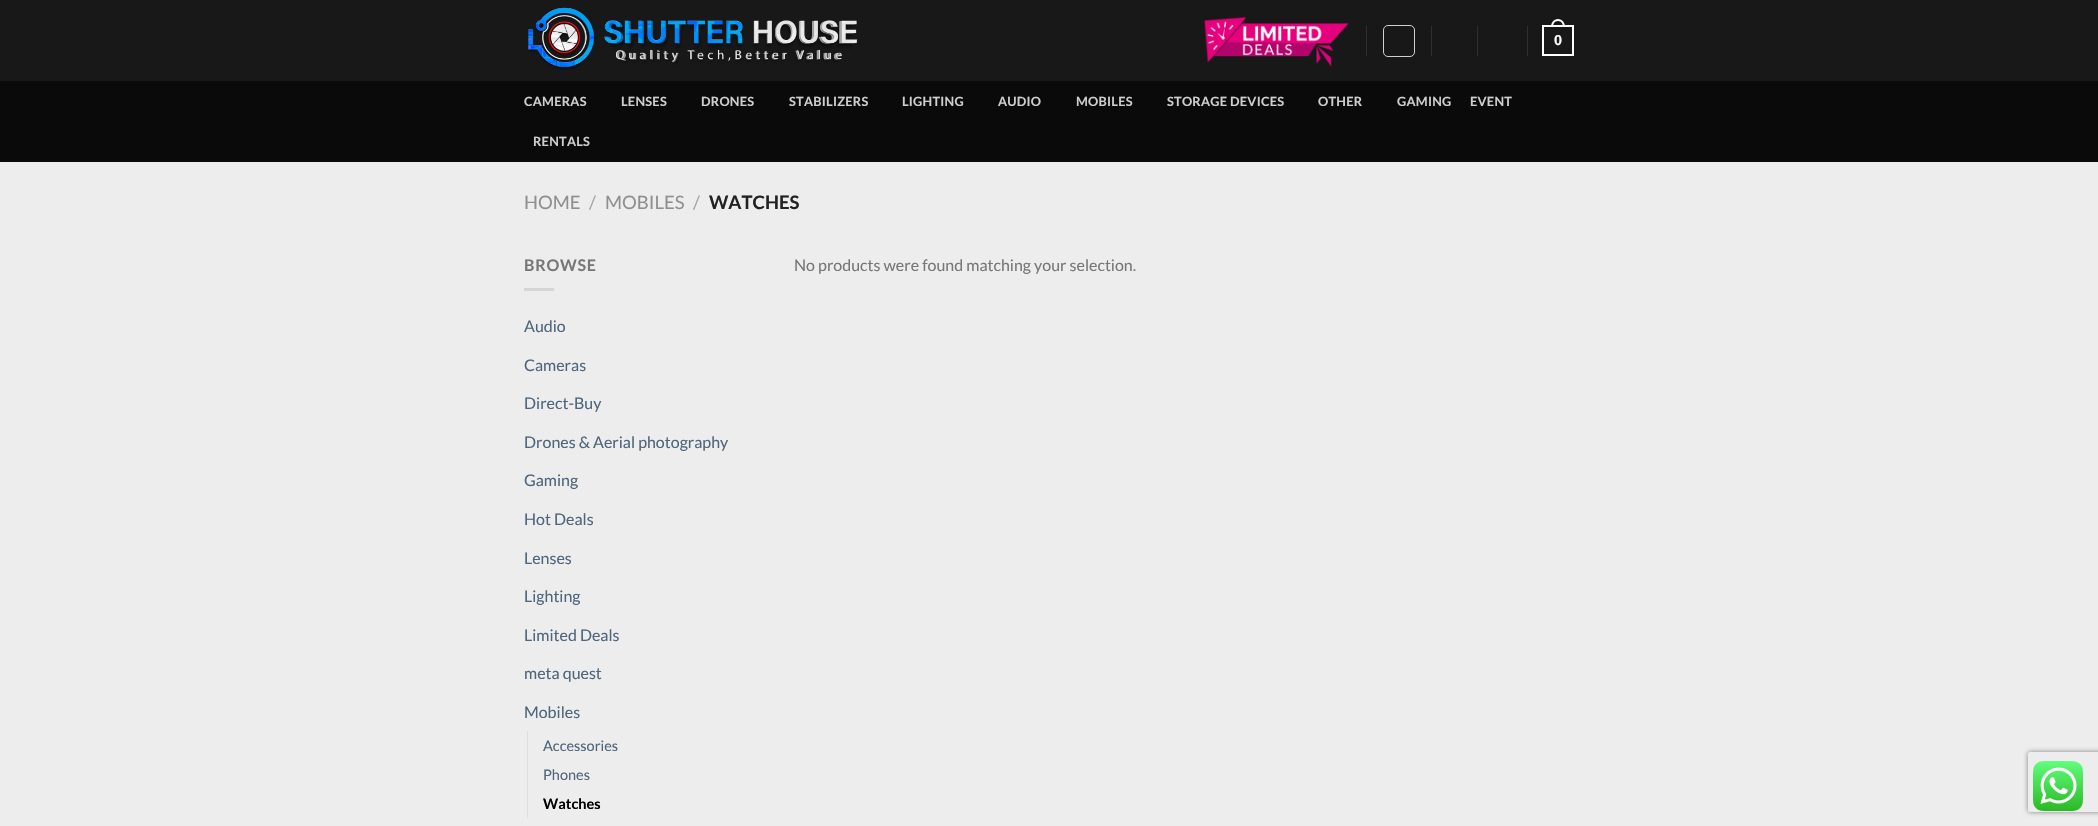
static SkFont makeFont(const char* family, int weight, float size, bool italic = false) {
  SkFontStyle style(weight, SkFontStyle::kNormal_Width,
    italic ? SkFontStyle::kItalic_Slant : SkFontStyle::kUpright_Slant);
  SkFont result(fontMgr->matchFamilyStyle(family, style), size);
  result.setSubpixel(true);
  return result;
}

static void text(SkCanvas* c, const char* s, float x, float y, const SkFont& font, SkColor color) {
  SkPaint ink(SkColor4f::FromColor(color));
  ink.setAntiAlias(true);
  c->drawString(s, x, y, font, ink);
}

static void spacedText(SkCanvas* c, const char* s, float x, float y, const SkFont& font, const SkPaint& ink, float letter, float word) {
  std::vector<SkGlyphID> glyphs(font.countText(s, strlen(s), SkTextEncoding::kUTF8));
  std::vector<float> xs(glyphs.size());
  font.textToGlyphs(s, strlen(s), SkTextEncoding::kUTF8, glyphs);
  font.getXPos(glyphs, xs, x);
  float extra = 0;
  for (size_t i = 0; i < glyphs.size(); i++) {
    xs[i] += extra;
    extra += letter + word * (glyphs[i] == font.unicharToGlyph(' '));
  }
  c->drawTextBlob(SkTextBlob::MakeFromPosHGlyphs(glyphs, xs, y, font), 0, 0, ink);
}

static void box(SkCanvas* c, float l, float t, float r, float b, SkColor color) {
  SkPaint ink(SkColor4f::FromColor(color));
  ink.setAntiAlias(true);
  c->drawRect(SkRect::MakeLTRB(l, t, r, b), ink);
}

static void picture(SkCanvas* c, const char* path, float l, float t, float r, float b) {
  auto image = SkImages::DeferredFromEncodedData(SkData::MakeFromFileName(path));
  c->drawImageRect(image, SkRect::MakeLTRB(l, t, r, b), SkSamplingOptions());
}

void draw(SkCanvas* c) {
  SkPaint paint;
  paint.setAntiAlias(true);
  c->clear(0xffededed);
  box(c, 0, 0, 2098, 81, 0xff181818);
  picture(c, "img_01.png", 528, 7, 858, 70);
  picture(c, "img_02.png", 1204, 16, 1349, 67);
  box(c, 1366, 26, 1367, 56, 0xff2f2f2f);
  paint.setStyle(SkPaint::kStroke_Style);
  paint.setStrokeWidth(1);
  paint.setColor(0xffd1d1d1);
  c->drawRoundRect(SkRect::MakeLTRB(1383.5f, 25.5f, 1414.5f, 56.5f), 4.5f, 4.5f, paint);
  box(c, 1431, 26, 1432, 56, 0xff2f2f2f);
  box(c, 1477, 26, 1478, 56, 0xff2f2f2f);
  box(c, 1527, 26, 1528, 56, 0xff2f2f2f);
  paint.setStrokeWidth(2);
  paint.setColor(0xffffffff);
  c->drawRect(SkRect::MakeLTRB(1543, 26, 1573, 55), paint);
  paint.setStyle(SkPaint::kFill_Style);
  c->drawPath(SkPathBuilder(SkPathFillType::kEvenOdd).moveTo(1558, 19).cubicTo(1562.5f, 19, 1565, 23, 1565, 27).lineTo(1551, 27).cubicTo(1551, 23, 1553.5f, 19, 1558, 19).close().moveTo(1558, 21).cubicTo(1561.5f, 21, 1563, 24, 1563, 27).lineTo(1553, 27).cubicTo(1553, 24, 1554.5f, 21, 1558, 21).close().detach(), paint);
  SkFont face1 = makeFont("Liberation Sans", 700, 14.5f);
  text(c, "0", 1554, 45, face1, 0xffffffff);
  box(c, 0, 81, 2098, 162, 0xff0a0a0a);
  SkFont face2 = makeFont("Lato", 700, 12.75f);
  paint.setColor(0xffcecece);
  spacedText(c, "CAMERAS", 524, 106, face2, paint, 0.25f, 0);
  spacedText(c, "LENSES", 621, 106, face2, paint, 0.25f, 0);
  spacedText(c, "DRONES", 701, 106, face2, paint, 0.25f, 0);
  spacedText(c, "STABILIZERS", 789, 106, face2, paint, 0.25f, 0);
  spacedText(c, "LIGHTING", 902, 106, face2, paint, 0.25f, 0);
  spacedText(c, "AUDIO", 998, 106, face2, paint, 0.25f, 0);
  spacedText(c, "MOBILES", 1076, 106, face2, paint, 0.25f, 0);
  spacedText(c, "STORAGE DEVICES", 1167, 106, face2, paint, 0.25f, 0);
  spacedText(c, "OTHER", 1318, 106, face2, paint, 0.25f, 0);
  spacedText(c, "GAMING", 1397, 106, face2, paint, 0.25f, 0);
  spacedText(c, "EVENT", 1470, 106, face2, paint, 0.25f, 0);
  spacedText(c, "RENTALS", 533, 146, face2, paint, 0.25f, 0);
  SkFont face3 = makeFont("Lato", 400, 18.5f);
  text(c, "HOME", 524, 209, face3, 0xff8f8f8f);
  text(c, "/", 589, 209, face3, 0xffa6a6a6);
  text(c, "MOBILES", 605, 209, face3, 0xff8f8f8f);
  text(c, "/", 693, 209, face3, 0xffa6a6a6);
  SkFont face4 = makeFont("Lato", 700, 18.5f);
  text(c, "WATCHES", 709, 209, face4, 0xff222222);
  SkFont face5 = makeFont("Lato", 700, 16);
  paint.setColor(0xff777777);
  spacedText(c, "BROWSE", 524, 271, face5, paint, 0.75f, 0);
  box(c, 524, 288, 554, 291, 0xffd5d5d5);
  SkFont face6 = makeFont("Lato", 400, 16);
  text(c, "Audio", 524, 332, face6, 0xff4e657b);
  text(c, "Cameras", 524, 371, face6, 0xff4e657b);
  text(c, "Direct-Buy", 524, 409, face6, 0xff4e657b);
  text(c, "Drones & Aerial photography", 524, 448, face6, 0xff4e657b);
  text(c, "Gaming", 524, 486, face6, 0xff4e657b);
  text(c, "Hot Deals", 524, 525, face6, 0xff4e657b);
  text(c, "Lenses", 524, 564, face6, 0xff4e657b);
  text(c, "Lighting", 524, 602, face6, 0xff4e657b);
  text(c, "Limited Deals", 524, 641, face6, 0xff4e657b);
  text(c, "meta quest", 524, 679, face6, 0xff4e657b);
  text(c, "Mobiles", 524, 718, face6, 0xff4e657b);
  box(c, 527, 731, 528, 818, 0xffdddddd);
  SkFont face7 = makeFont("Lato", 400, 14.5f);
  text(c, "Accessories", 543, 751, face7, 0xff4e657b);
  text(c, "Phones", 543, 780, face7, 0xff4e657b);
  SkFont face8 = makeFont("Lato", 700, 14.5f);
  text(c, "Watches", 543, 809, face8, 0xff000000);
  text(c, "No products were found matching your selection.", 794, 271, face6, 0xff777777);
  c->save();
  c->clipPath(SkPathBuilder(SkPathFillType::kEvenOdd).moveTo(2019, 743).lineTo(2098, 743).lineTo(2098, 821).lineTo(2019, 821).close().moveTo(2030, 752).lineTo(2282, 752).cubicTo(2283, 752, 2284, 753, 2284, 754).lineTo(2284, 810).cubicTo(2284, 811, 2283, 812, 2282, 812).lineTo(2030, 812).cubicTo(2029, 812, 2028, 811, 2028, 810).lineTo(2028, 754).cubicTo(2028, 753, 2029, 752, 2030, 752).close().detach(), true);
  paint.setColor(0xff808080);
  paint.setMaskFilter(SkMaskFilter::MakeBlur(kNormal_SkBlurStyle, 2.5f));
  c->drawRoundRect(SkRect::MakeLTRB(2028, 752, 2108, 812), 2, 2, paint);
  paint.setMaskFilter(nullptr);
  c->restore();
  picture(c, "img_03.png", 2033, 761, 2083, 811);
}
